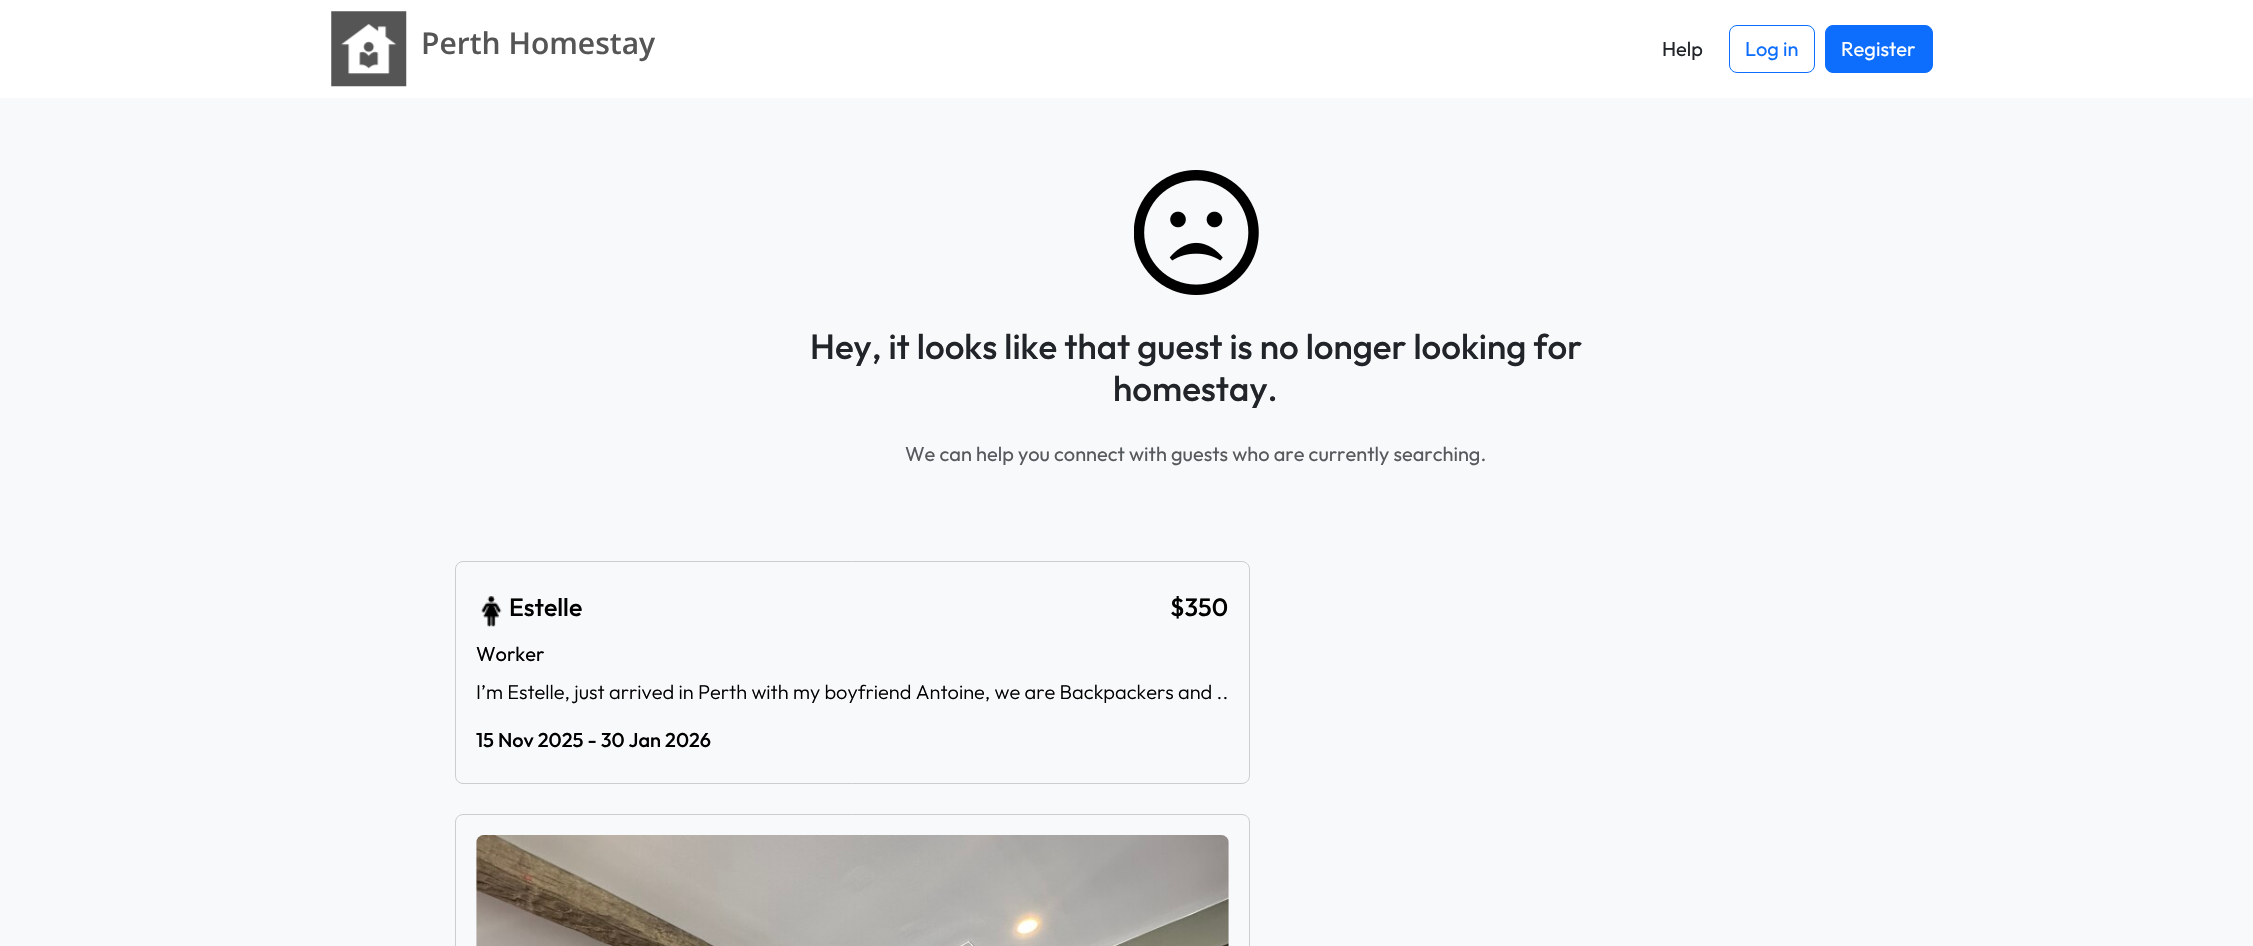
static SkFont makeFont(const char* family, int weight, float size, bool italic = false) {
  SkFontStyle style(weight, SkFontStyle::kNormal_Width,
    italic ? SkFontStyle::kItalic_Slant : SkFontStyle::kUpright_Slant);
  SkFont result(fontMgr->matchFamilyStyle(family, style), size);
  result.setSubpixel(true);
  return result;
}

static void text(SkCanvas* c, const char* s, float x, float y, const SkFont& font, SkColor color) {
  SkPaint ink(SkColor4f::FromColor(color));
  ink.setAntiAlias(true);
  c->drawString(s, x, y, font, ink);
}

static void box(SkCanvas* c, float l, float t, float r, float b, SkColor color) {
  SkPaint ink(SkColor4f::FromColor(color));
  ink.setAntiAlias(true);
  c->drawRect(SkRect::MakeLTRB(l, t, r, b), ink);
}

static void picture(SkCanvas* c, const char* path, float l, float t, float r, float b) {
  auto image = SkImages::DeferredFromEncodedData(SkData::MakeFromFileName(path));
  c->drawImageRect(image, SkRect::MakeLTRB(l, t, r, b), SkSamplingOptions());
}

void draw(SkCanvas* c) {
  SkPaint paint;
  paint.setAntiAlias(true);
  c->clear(0xfff8f9fa);
  box(c, 0, 0, 2253, 98, 0xffffffff);
  picture(c, "img_01.png", 331, 11, 407, 87);
  SkFont face1 = makeFont("Open Sans", 600, 30);
  text(c, "Perth Homestay", 421, 54, face1, 0xff555555);
  SkFont face2 = makeFont("Outfit", 400, 20);
  text(c, "Help", 1662, 56, face2, 0xff212529);
  paint.setStyle(SkPaint::kStroke_Style);
  paint.setStrokeWidth(1);
  paint.setColor(0xff0d6efd);
  c->drawRoundRect(SkRect::MakeLTRB(1729.5f, 25.5f, 1814.5f, 72.5f), 7.5f, 7.5f, paint);
  text(c, "Log in", 1745, 56, face2, 0xff0d6efd);
  paint.setStyle(SkPaint::kFill_Style);
  c->drawRoundRect(SkRect::MakeLTRB(1825.5f, 25.5f, 1932.5f, 72.5f), 7.5f, 7.5f, paint);
  paint.setStyle(SkPaint::kStroke_Style);
  c->drawRoundRect(SkRect::MakeLTRB(1825.5f, 25.5f, 1932.5f, 72.5f), 7.5f, 7.5f, paint);
  text(c, "Register", 1841, 56, face2, 0xffffffff);
  picture(c, "img_02.png", 1134, 170, 1259, 295);
  SkFont face3 = makeFont("Outfit", 500, 35);
  text(c, "Hey, it looks like that guest is no longer looking for", 810, 359, face3, 0xff212529);
  text(c, "homestay.", 1113, 401, face3, 0xff212529);
  text(c, "We can help you connect with guests who are currently searching.", 905, 461, face2, 0xff575a5d);
  paint.setColor(0xffcccdce);
  c->drawRoundRect(SkRect::MakeLTRB(455.5f, 561.5f, 1249.5f, 783.5f), 7.5f, 7.5f, paint);
  picture(c, "img_03.png", 481, 596, 502, 627);
  SkFont face4 = makeFont("Outfit", 500, 25);
  text(c, "Estelle", 509, 616, face4, 0xff000000);
  text(c, "$350", 1170, 616, face4, 0xff000000);
  text(c, "Worker", 476, 661, face2, 0xff000000);
  SkFont face5 = makeFont("Outfit", 300, 20);
  text(c, "I’m Estelle, just arrived in Perth with my boyfriend Antoine, we are Backpackers and ..", 476, 699, face5, 0xff000000);
  SkFont face6 = makeFont("Outfit", 500, 20);
  text(c, "15 Nov 2025 - 30 Jan 2026", 476, 747, face6, 0xff000000);
  c->drawRoundRect(SkRect::MakeLTRB(455.5f, 814.5f, 1249.5f, 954.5f), 7.5f, 7.5f, paint);
  picture(c, "img_04.png", 476, 835, 1229, 946);
}
